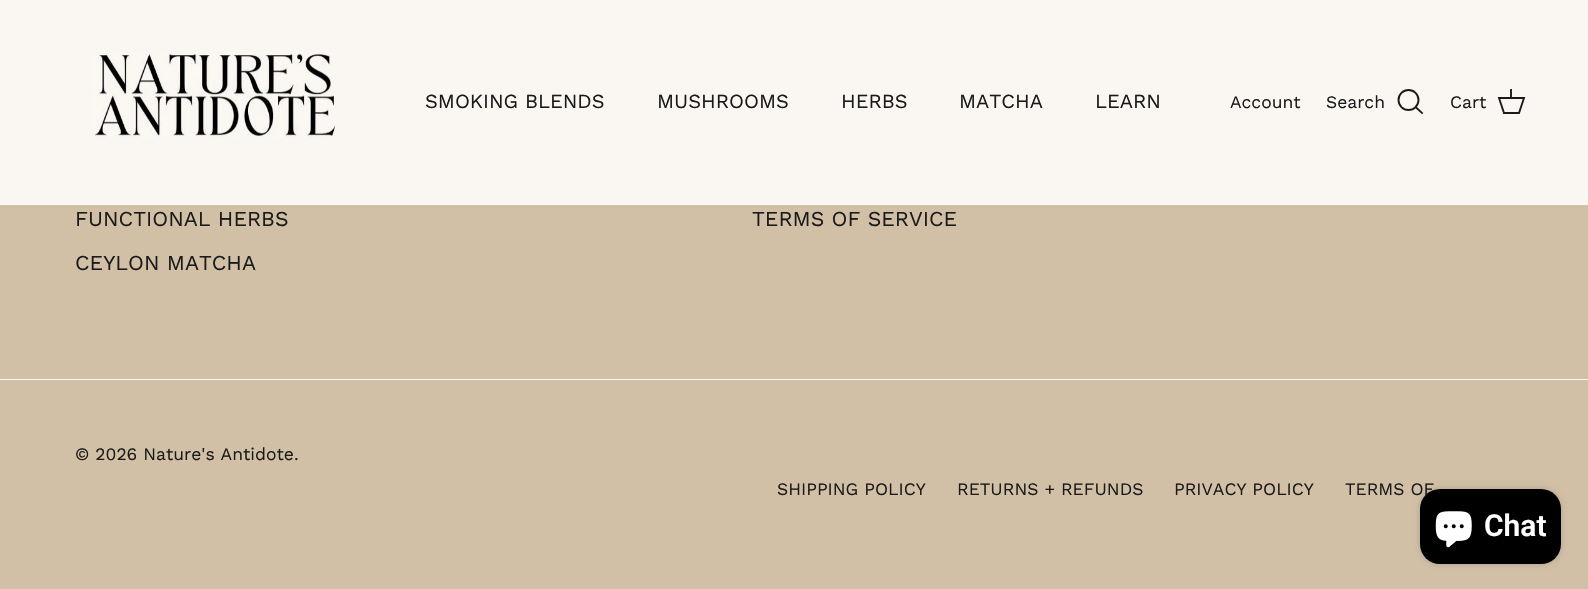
static SkFont makeFont(const char* family, int weight, float size, bool italic = false) {
  SkFontStyle style(weight, SkFontStyle::kNormal_Width,
    italic ? SkFontStyle::kItalic_Slant : SkFontStyle::kUpright_Slant);
  SkFont result(fontMgr->matchFamilyStyle(family, style), size);
  result.setSubpixel(true);
  return result;
}

static void text(SkCanvas* c, const char* s, float x, float y, const SkFont& font, SkColor color) {
  SkPaint ink(SkColor4f::FromColor(color));
  ink.setAntiAlias(true);
  c->drawString(s, x, y, font, ink);
}

static void box(SkCanvas* c, float l, float t, float r, float b, SkColor color) {
  SkPaint ink(SkColor4f::FromColor(color));
  ink.setAntiAlias(true);
  c->drawRect(SkRect::MakeLTRB(l, t, r, b), ink);
}

static void roundBox(SkCanvas* c, float l, float t, float r, float b, float radius, SkColor color) {
  SkPaint ink(SkColor4f::FromColor(color));
  ink.setAntiAlias(true);
  c->drawRoundRect(SkRect::MakeLTRB(l, t, r, b), radius, radius, ink);
}

static void picture(SkCanvas* c, const char* path, float l, float t, float r, float b) {
  auto image = SkImages::DeferredFromEncodedData(SkData::MakeFromFileName(path));
  c->drawImageRect(image, SkRect::MakeLTRB(l, t, r, b), SkSamplingOptions());
}

void draw(SkCanvas* c) {
  SkPaint paint;
  paint.setAntiAlias(true);
  c->clear(0xffd1bfa6);
  box(c, 0, 0, 1588, 205, 0xfffaf7f2);
  picture(c, "img_01.png", 92, 53, 337, 138);
  SkFont face1 = makeFont("Work Sans", 400, 20);
  text(c, "SMOKING BLENDS", 425, 108, face1, 0xff1a1a1a);
  text(c, "MUSHROOMS", 657, 108, face1, 0xff1a1a1a);
  text(c, "HERBS", 841, 108, face1, 0xff1a1a1a);
  text(c, "MATCHA", 959, 108, face1, 0xff1a1a1a);
  text(c, "LEARN", 1095, 108, face1, 0xff1a1a1a);
  SkFont face2 = makeFont("Work Sans", 400, 17.5f);
  text(c, "Account", 1230, 108, face2, 0xff1a1a1a);
  text(c, "Search", 1326, 108, face2, 0xff1a1a1a);
  paint.setStyle(SkPaint::kStroke_Style);
  paint.setStrokeWidth(1.9f);
  paint.setColor(0xff1a1a1a);
  c->drawCircle(1408.5f, 100, 10, paint);
  paint.setStrokeCap(SkPaint::kSquare_Cap);
  c->drawPath(SkPathBuilder().moveTo(1416, 107.5f).lineTo(1422, 113).detach(), paint);
  text(c, "Cart", 1450, 108, face2, 0xff1a1a1a);
  paint.setStrokeCap(SkPaint::kButt_Cap);
  c->drawPath(SkPathBuilder().moveTo(1499, 98).lineTo(1524, 98).lineTo(1519, 113).lineTo(1504, 113).close().detach(), paint);
  box(c, 1510, 89, 1512, 98, 0xf21a1a1a);
  SkFont face3 = makeFont("Work Sans", 400, 21.25f);
  text(c, "FUNCTIONAL HERBS", 75, 226, face3, 0xff1a1a1a);
  text(c, "CEYLON MATCHA", 75, 270, face3, 0xff1a1a1a);
  text(c, "TERMS OF SERVICE", 752, 226, face3, 0xff1a1a1a);
  box(c, 0, 379, 1588, 380, 0xfffaf7f2);
  text(c, "© 2026 Nature's Antidote.", 75, 460, face2, 0xff1a1a1a);
  text(c, "SHIPPING POLICY", 777, 495, face2, 0xff1a1a1a);
  text(c, "RETURNS + REFUNDS", 957, 495, face2, 0xff1a1a1a);
  text(c, "PRIVACY POLICY", 1174, 495, face2, 0xff1a1a1a);
  text(c, "TERMS OF", 1345, 495, face2, 0xff1a1a1a);
  paint.setStyle(SkPaint::kFill_Style);
  paint.setColor(0x26000000);
  paint.setMaskFilter(SkMaskFilter::MakeBlur(kNormal_SkBlurStyle, 3));
  c->drawRoundRect(SkRect::MakeLTRB(1420, 489, 1561, 564), 20, 20, paint);
  paint.setMaskFilter(nullptr);
  roundBox(c, 1420, 489, 1561, 564, 20, 0xff000000);
  picture(c, "img_02.png", 1435, 511, 1472, 548);
  SkFont face4 = makeFont("Roboto", 600, 30);
  text(c, "Chat", 1484, 536, face4, 0xffffffff);
}
